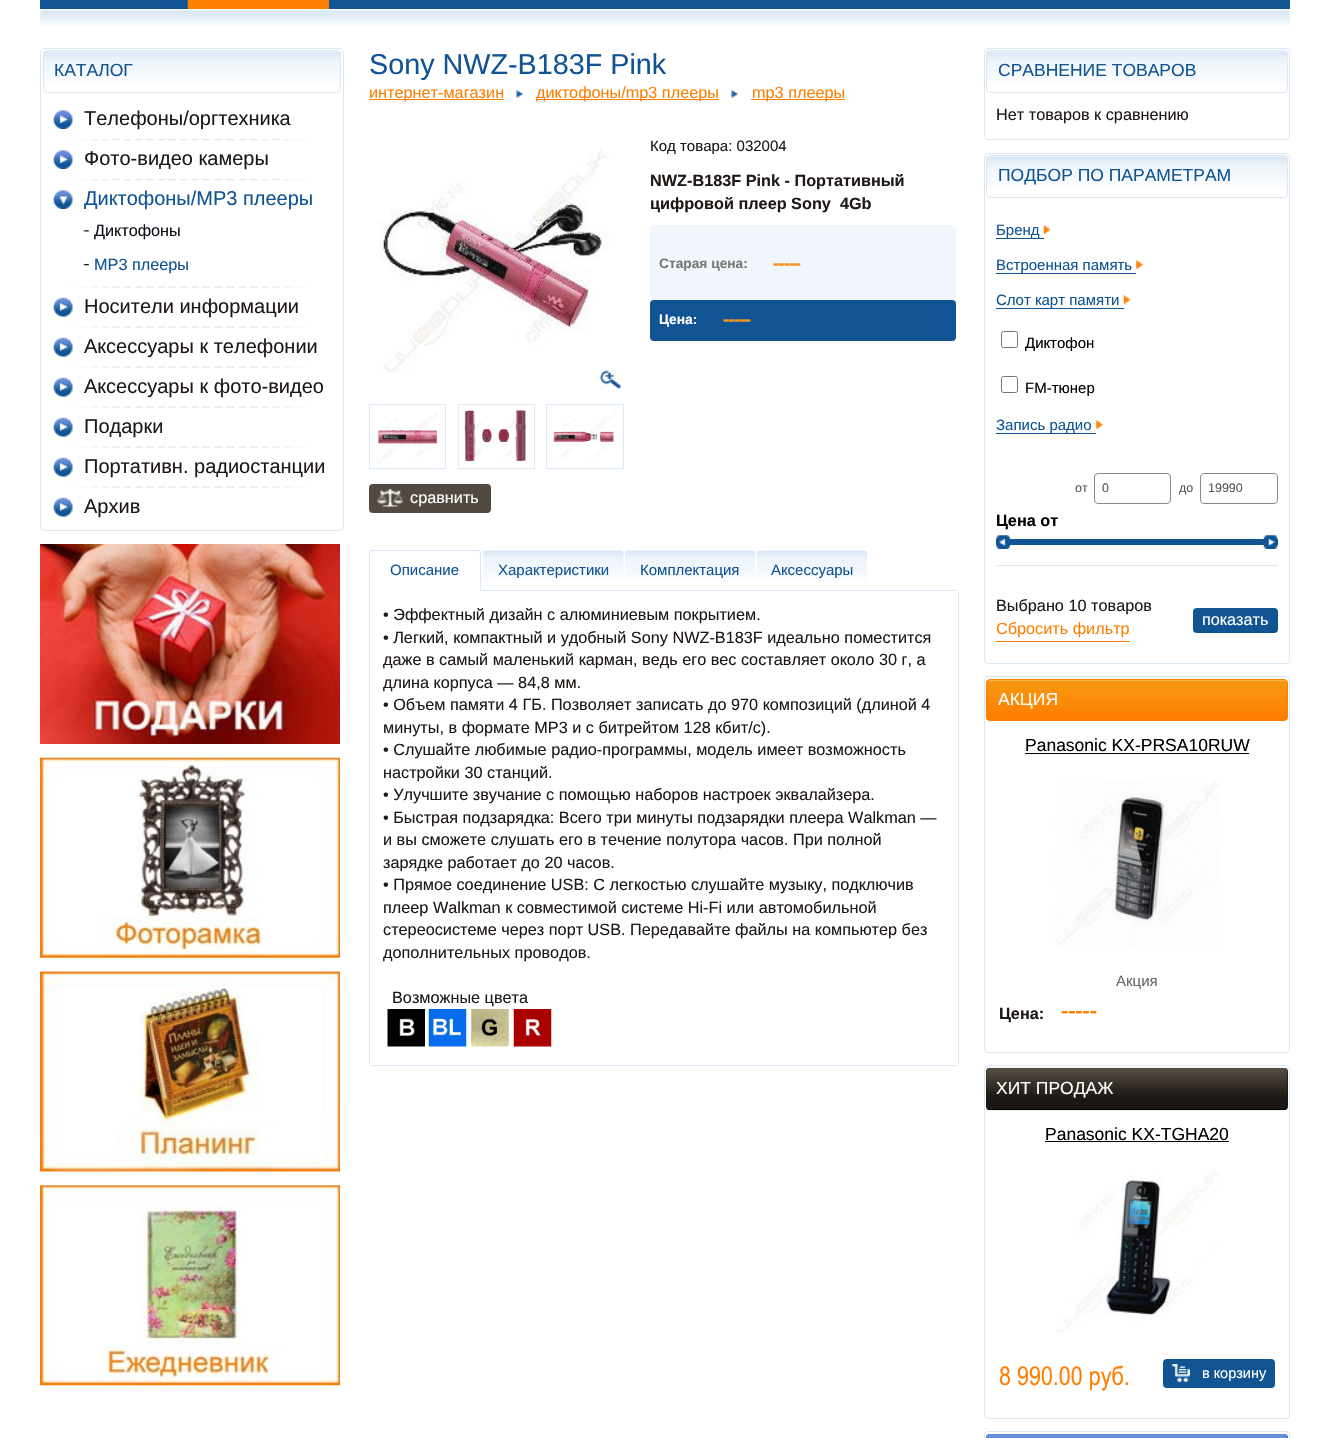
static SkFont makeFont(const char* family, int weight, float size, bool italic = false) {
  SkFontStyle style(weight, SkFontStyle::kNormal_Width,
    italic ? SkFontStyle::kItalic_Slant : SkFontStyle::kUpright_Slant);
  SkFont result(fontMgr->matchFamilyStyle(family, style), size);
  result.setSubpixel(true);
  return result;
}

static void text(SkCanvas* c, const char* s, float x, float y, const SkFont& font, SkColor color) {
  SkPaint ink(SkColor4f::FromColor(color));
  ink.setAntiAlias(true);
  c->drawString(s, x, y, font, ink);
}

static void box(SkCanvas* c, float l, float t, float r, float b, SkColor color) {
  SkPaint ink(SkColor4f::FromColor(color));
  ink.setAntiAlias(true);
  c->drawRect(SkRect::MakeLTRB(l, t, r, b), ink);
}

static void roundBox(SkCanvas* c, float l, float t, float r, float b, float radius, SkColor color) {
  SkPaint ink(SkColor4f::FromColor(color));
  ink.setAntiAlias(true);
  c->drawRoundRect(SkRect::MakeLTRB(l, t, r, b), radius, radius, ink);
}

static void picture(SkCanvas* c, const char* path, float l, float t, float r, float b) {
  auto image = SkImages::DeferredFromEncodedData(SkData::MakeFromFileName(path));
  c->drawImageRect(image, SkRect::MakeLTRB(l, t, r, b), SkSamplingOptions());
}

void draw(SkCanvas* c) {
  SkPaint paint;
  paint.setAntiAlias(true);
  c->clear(0xffffffff);
  box(c, 40, 0, 1290, 9, 0xff105493);
  box(c, 185, 0, 186, 1, 0xff155795);
  box(c, 188, 0, 329, 9, 0xffff8001);
  picture(c, "img_01.png", 187, 0, 188, 8);
  box(c, 329, 0, 330, 1, 0xff155795);
  box(c, 499, 0, 500, 1, 0xff155795);
  box(c, 620, 0, 621, 1, 0xff155795);
  box(c, 779, 0, 780, 1, 0xff155795);
  picture(c, "img_02.png", 40, 10, 1290, 27);
  paint.setStyle(SkPaint::kStroke_Style);
  paint.setStrokeWidth(1);
  paint.setColor(0xffdae8f6);
  c->drawRoundRect(SkRect::MakeLTRB(40.5f, 48.5f, 343.5f, 530.5f), 3.5f, 3.5f, paint);
  picture(c, "img_03.png", 42, 51, 341, 82);
  c->drawRoundRect(SkRect::MakeLTRB(43.5f, 50.5f, 340.5f, 92.5f), 3.5f, 3.5f, paint);
  SkFont face1 = makeFont("Liberation Sans", 400, 17.5f);
  text(c, "КАТАЛОГ", 54, 76, face1, 0xff105493);
  picture(c, "img_04.png", 53, 110, 73, 129);
  SkFont face2 = makeFont("Liberation Sans", 400, 20);
  text(c, "Телефоны/оргтехника", 84, 125, face2, 0xff1e1916);
  picture(c, "img_05.png", 69, 139, 313, 141);
  picture(c, "img_04.png", 53, 150, 73, 169);
  text(c, "Фото-видео камеры", 84, 165, face2, 0xff1e1916);
  picture(c, "img_05.png", 69, 179, 313, 181);
  picture(c, "img_06.png", 53, 190, 73, 209);
  text(c, "Диктофоны/MP3 плееры", 84, 205, face2, 0xff105493);
  picture(c, "img_07.png", 83, 230, 89, 232);
  SkFont face3 = makeFont("Liberation Sans", 400, 16.25f);
  text(c, "Диктофоны", 94, 236, face3, 0xff0d1119);
  picture(c, "img_08.png", 83, 264, 89, 266);
  text(c, "MP3 плееры", 94, 270, face3, 0xff105493);
  picture(c, "img_09.png", 69, 286, 309, 288);
  picture(c, "img_10.png", 53, 297, 73, 317);
  text(c, "Носители информации", 84, 313, face2, 0xff1e1916);
  picture(c, "img_09.png", 69, 326, 309, 328);
  picture(c, "img_10.png", 53, 337, 73, 357);
  text(c, "Аксессуары к телефонии", 84, 353, face2, 0xff1e1916);
  picture(c, "img_09.png", 69, 366, 309, 368);
  picture(c, "img_10.png", 53, 377, 73, 397);
  text(c, "Аксессуары к фото-видео", 84, 393, face2, 0xff1e1916);
  picture(c, "img_09.png", 69, 406, 309, 408);
  picture(c, "img_10.png", 53, 417, 73, 437);
  text(c, "Подарки", 84, 433, face2, 0xff1e1916);
  picture(c, "img_09.png", 69, 446, 309, 448);
  picture(c, "img_10.png", 53, 457, 73, 477);
  text(c, "Портативн. радиостанции", 84, 473, face2, 0xff1e1916);
  picture(c, "img_09.png", 69, 486, 309, 488);
  picture(c, "img_10.png", 53, 497, 73, 517);
  text(c, "Архив", 84, 513, face2, 0xff1e1916);
  picture(c, "img_11.png", 40, 544, 340, 744);
  picture(c, "img_12.png", 40, 757, 340, 958);
  picture(c, "img_13.png", 40, 971, 340, 1172);
  picture(c, "img_14.png", 40, 1185, 340, 1386);
  SkFont face4 = makeFont("Liberation Sans", 400, 28.75f);
  text(c, "Sony NWZ-B183F Pink", 369, 74, face4, 0xff105493);
  box(c, 369, 99, 504, 100, 0xfffe8202);
  text(c, "интернет-магазин", 369, 98, face3, 0xffff8001);
  picture(c, "img_15.png", 516, 90, 524, 98);
  box(c, 536, 99, 719, 100, 0xfffe8202);
  text(c, "диктофоны/mp3 плееры", 536, 98, face3, 0xffff8001);
  picture(c, "img_15.png", 731, 90, 739, 98);
  box(c, 751, 99, 845, 100, 0xfffe8202);
  text(c, "mp3 плееры", 752, 98, face3, 0xffff8001);
  picture(c, "img_16.png", 379, 148, 609, 372);
  picture(c, "img_17.png", 599, 370, 622, 390);
  c->drawRect(SkRect::MakeLTRB(369.5f, 404.5f, 445.5f, 468.5f), paint);
  picture(c, "img_18.png", 375, 411, 440, 465);
  c->drawRect(SkRect::MakeLTRB(458.5f, 404.5f, 534.5f, 468.5f), paint);
  picture(c, "img_19.png", 458, 405, 529, 468);
  c->drawRect(SkRect::MakeLTRB(546.5f, 404.5f, 623.5f, 468.5f), paint);
  picture(c, "img_20.png", 553, 410, 617, 465);
  SkFont face5 = makeFont("Liberation Sans", 400, 15);
  text(c, "Код товара: 032004", 650, 151, face5, 0xff1e1916);
  SkFont face6 = makeFont("Liberation Sans", 700, 16.25f);
  text(c, "NWZ-B183F Pink - Портативный", 650, 186, face6, 0xff1e1916);
  text(c, "цифровой плеер Sony  4Gb", 650, 209, face6, 0xff1e1916);
  paint.setStyle(SkPaint::kFill_Style);
  paint.setColor(0xfff0f6fb);
  c->drawPath(SkPathBuilder().moveTo(654, 225).lineTo(952, 225).cubicTo(954, 225, 956, 227, 956, 229).lineTo(956, 300).lineTo(650, 300).lineTo(650, 229).cubicTo(650, 227, 652, 225, 654, 225).close().detach(), paint);
  SkFont face7 = makeFont("Liberation Sans", 700, 13.75f);
  text(c, "Старая цена:", 659, 268, face7, 0xff767876);
  SkFont face8 = makeFont("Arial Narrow", 700, 20);
  text(c, "-----", 773, 270, face8, 0xfff7941c);
  roundBox(c, 650, 300, 956, 341, 4, 0xff105493);
  text(c, "Цена:", 659, 324, face7, 0xffffffff);
  text(c, "-----", 723, 326, face8, 0xfff7941c);
  roundBox(c, 369, 484, 491, 513, 4, 0xff524a40);
  picture(c, "img_21.png", 377, 489, 403, 507);
  text(c, "сравнить", 410, 503, face3, 0xffffffff);
  paint.setStyle(SkPaint::kStroke_Style);
  paint.setColor(0xffdae8f6);
  c->drawPath(SkPathBuilder().moveTo(369.5f, 590.5f).lineTo(955, 590.5f).cubicTo(957, 590.5f, 958.5f, 592, 958.5f, 594).lineTo(958.5f, 1062).cubicTo(958.5f, 1064, 957, 1065.5f, 955, 1065.5f).lineTo(373, 1065.5f).cubicTo(371, 1065.5f, 369.5f, 1064, 369.5f, 1062).close().detach(), paint);
  paint.setStyle(SkPaint::kFill_Style);
  paint.setColor(0xffffffff);
  c->drawPath(SkPathBuilder().moveTo(373, 550).lineTo(477, 550).cubicTo(479, 550, 481, 552, 481, 554).lineTo(481, 591).lineTo(369, 591).lineTo(369, 554).cubicTo(369, 552, 371, 550, 373, 550).close().detach(), paint);
  paint.setColor(0xffdae8f6);
  c->drawPath(SkPathBuilder(SkPathFillType::kEvenOdd).moveTo(372, 550).lineTo(478, 550).cubicTo(480, 550, 481, 552, 481, 554).lineTo(481, 591).lineTo(369, 591).lineTo(369, 554).cubicTo(369, 552, 370, 550, 372, 550).close().moveTo(372, 551).lineTo(478, 551).cubicTo(479, 551, 480, 552, 480, 554).lineTo(480, 591).lineTo(370, 591).lineTo(370, 554).cubicTo(370, 552, 371, 551, 372, 551).close().detach(), paint);
  text(c, "Описание", 390, 575, face5, 0xff105493);
  picture(c, "img_22.png", 482, 550, 624, 581);
  text(c, "Характеристики", 498, 575, face5, 0xff105493);
  picture(c, "img_23.png", 625, 550, 755, 581);
  text(c, "Комплектация", 640, 575, face5, 0xff105493);
  picture(c, "img_24.png", 756, 550, 868, 581);
  text(c, "Аксессуары", 771, 575, face5, 0xff105493);
  text(c, "• Эффектный дизайн с алюминиевым покрытием.", 383, 620, face3, 0xff1e1916);
  text(c, "• Легкий, компактный и удобный Sony NWZ-B183F идеально поместится", 383, 643, face3, 0xff1e1916);
  text(c, "даже в самый маленький карман, ведь его вес составляет около 30 г, а", 383, 665, face3, 0xff1e1916);
  text(c, "длина корпуса — 84,8 мм.", 383, 688, face3, 0xff1e1916);
  text(c, "• Объем памяти 4 ГБ. Позволяет записать до 970 композиций (длиной 4", 383, 710, face3, 0xff1e1916);
  text(c, "минуты, в формате MP3 и с битрейтом 128 кбит/с).", 383, 733, face3, 0xff1e1916);
  text(c, "• Слушайте любимые радио-программы, модель имеет возможность", 383, 755, face3, 0xff1e1916);
  text(c, "настройки 30 станций.", 383, 778, face3, 0xff1e1916);
  text(c, "• Улучшите звучание с помощью наборов настроек эквалайзера.", 383, 800, face3, 0xff1e1916);
  text(c, "• Быстрая подзарядка: Всего три минуты подзарядки плеера Walkman —", 383, 823, face3, 0xff1e1916);
  text(c, "и вы сможете слушать его в течение полутора часов. При полной", 383, 845, face3, 0xff1e1916);
  text(c, "зарядке работает до 20 часов.", 383, 868, face3, 0xff1e1916);
  text(c, "• Прямое соединение USB: С легкостью слушайте музыку, подключив", 383, 890, face3, 0xff1e1916);
  text(c, "плеер Walkman к совместимой системе Hi-Fi или автомобильной", 383, 913, face3, 0xff1e1916);
  text(c, "стереосистеме через порт USB. Передавайте файлы на компьютер без", 383, 935, face3, 0xff1e1916);
  text(c, "дополнительных проводов.", 383, 958, face3, 0xff1e1916);
  text(c, "Возможные цвета", 392, 1003, face3, 0xff1e1916);
  picture(c, "img_25.png", 387, 1009, 425, 1047);
  picture(c, "img_26.png", 428, 1009, 467, 1047);
  picture(c, "img_27.png", 471, 1009, 509, 1047);
  picture(c, "img_28.png", 513, 1009, 552, 1047);
  paint.setStyle(SkPaint::kStroke_Style);
  c->drawRoundRect(SkRect::MakeLTRB(984.5f, 48.5f, 1289.5f, 139.5f), 3.5f, 3.5f, paint);
  picture(c, "img_29.png", 986, 51, 1288, 82);
  c->drawRoundRect(SkRect::MakeLTRB(986.5f, 50.5f, 1287.5f, 92.5f), 3.5f, 3.5f, paint);
  text(c, "СРАВНЕНИЕ ТОВАРОВ", 998, 76, face1, 0xff105493);
  text(c, "Нет товаров к сравнению", 996, 120, face3, 0xff1e1916);
  c->drawRoundRect(SkRect::MakeLTRB(984.5f, 153.5f, 1289.5f, 663.5f), 3.5f, 3.5f, paint);
  picture(c, "img_29.png", 986, 156, 1288, 187);
  c->drawRoundRect(SkRect::MakeLTRB(986.5f, 155.5f, 1287.5f, 197.5f), 3.5f, 3.5f, paint);
  text(c, "ПОДБОР ПО ПАРАМЕТРАМ", 998, 181, face1, 0xff105493);
  box(c, 996, 238, 1044, 239, 0xff105493);
  text(c, "Бренд", 996, 235, face5, 0xff105493);
  picture(c, "img_30.png", 1043, 225, 1051, 235);
  box(c, 996, 273, 1136, 274, 0xff105493);
  text(c, "Встроенная память", 996, 270, face5, 0xff105493);
  picture(c, "img_31.png", 1136, 260, 1144, 270);
  box(c, 996, 308, 1124, 309, 0xff105493);
  text(c, "Слот карт памяти", 996, 305, face5, 0xff105493);
  picture(c, "img_32.png", 1123, 295, 1131, 305);
  paint.setColor(0xff767676);
  c->drawRoundRect(SkRect::MakeLTRB(1001.5f, 331.5f, 1017.5f, 347.5f), 2, 2, paint);
  text(c, "Диктофон", 1025, 348, face5, 0xff000000);
  c->drawRoundRect(SkRect::MakeLTRB(1001.5f, 376.5f, 1017.5f, 392.5f), 2, 2, paint);
  text(c, "FM-тюнер", 1025, 393, face5, 0xff000000);
  box(c, 996, 433, 1096, 434, 0xff105493);
  text(c, "Запись радио", 996, 430, face5, 0xff105493);
  picture(c, "img_31.png", 1096, 420, 1104, 430);
  SkFont face9 = makeFont("Liberation Sans", 400, 12.5f);
  text(c, "от", 1075, 492, face9, 0xff595959);
  paint.setColor(0xff898989);
  c->drawRoundRect(SkRect::MakeLTRB(1094.5f, 473.5f, 1170.5f, 503.5f), 3.5f, 3.5f, paint);
  text(c, "0", 1102, 492, face9, 0xff595959);
  text(c, "до", 1179, 492, face9, 0xff595959);
  c->drawRoundRect(SkRect::MakeLTRB(1200.5f, 473.5f, 1277.5f, 503.5f), 3.5f, 3.5f, paint);
  text(c, "19990", 1208, 492, face9, 0xff595959);
  text(c, "Цена от", 996, 526, face6, 0xff000000);
  box(c, 996, 565, 1278, 566, 0xffdae8f6);
  box(c, 996, 539, 1278, 545, 0xff105493);
  picture(c, "img_33.png", 996, 535, 1010, 549);
  picture(c, "img_34.png", 1263, 535, 1278, 549);
  text(c, "Выбрано 10 товаров", 996, 611, face3, 0xff1e1916);
  roundBox(c, 1193, 608, 1278, 633, 4, 0xff105493);
  text(c, "показать", 1202, 625, face3, 0xffffffff);
  box(c, 996, 641, 1130, 642, 0xffff7f00);
  text(c, "Сбросить фильтр", 996, 634, face3, 0xffff8001);
  paint.setColor(0xffdae8f6);
  c->drawRoundRect(SkRect::MakeLTRB(984.5f, 676.5f, 1289.5f, 1052.5f), 3.5f, 3.5f, paint);
  picture(c, "img_35.png", 986, 680, 1288, 721);
  paint.setColor(0xffff7f00);
  c->drawRoundRect(SkRect::MakeLTRB(986.5f, 679.5f, 1287.5f, 720.5f), 3.5f, 3.5f, paint);
  text(c, "АКЦИЯ", 998, 705, face1, 0xffffffff);
  text(c, "Panasonic KX-PRSA10RUW", 1025, 751, face1, 0xff000000);
  box(c, 1025, 753, 1249, 754, 0xff030303);
  picture(c, "img_36.png", 1055, 780, 1221, 946);
  text(c, "Акция", 1116, 986, face5, 0xff66696e);
  text(c, "Цена:", 999, 1019, face6, 0xff1e1916);
  SkFont face10 = makeFont("Arial Narrow", 400, 26.25f);
  text(c, "-----", 1061, 1019, face10, 0xffff8001);
  paint.setColor(0xffdae8f6);
  c->drawRoundRect(SkRect::MakeLTRB(984.5f, 1065.5f, 1289.5f, 1418.5f), 3.5f, 3.5f, paint);
  roundBox(c, 986, 1068, 1288, 1110, 4, 0xff1c1714);
  picture(c, "img_37.png", 986, 1067, 1288, 1111);
  text(c, "ХИТ ПРОДАЖ", 996, 1094, face1, 0xffffffff);
  text(c, "Panasonic KX-TGHA20", 1045, 1140, face1, 0xff000000);
  box(c, 1045, 1141, 1229, 1142, 0xff030303);
  picture(c, "img_38.png", 1056, 1169, 1220, 1333);
  text(c, "8 990.00 руб.", 999, 1385, face10, 0xffff8001);
  roundBox(c, 1163, 1359, 1275, 1388, 4, 0xff105493);
  picture(c, "img_39.png", 1171, 1364, 1190, 1383);
  SkFont face11 = makeFont("Liberation Sans", 400, 14.5f);
  text(c, "в корзину", 1202, 1378, face11, 0xffffffff);
  c->drawRoundRect(SkRect::MakeLTRB(984.5f, 1431.5f, 1289.5f, 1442.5f), 3.5f, 3.5f, paint);
  roundBox(c, 986, 1434, 1288, 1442, 4, 0xff105493);
  picture(c, "img_40.png", 986, 1434, 1288, 1438);
}
